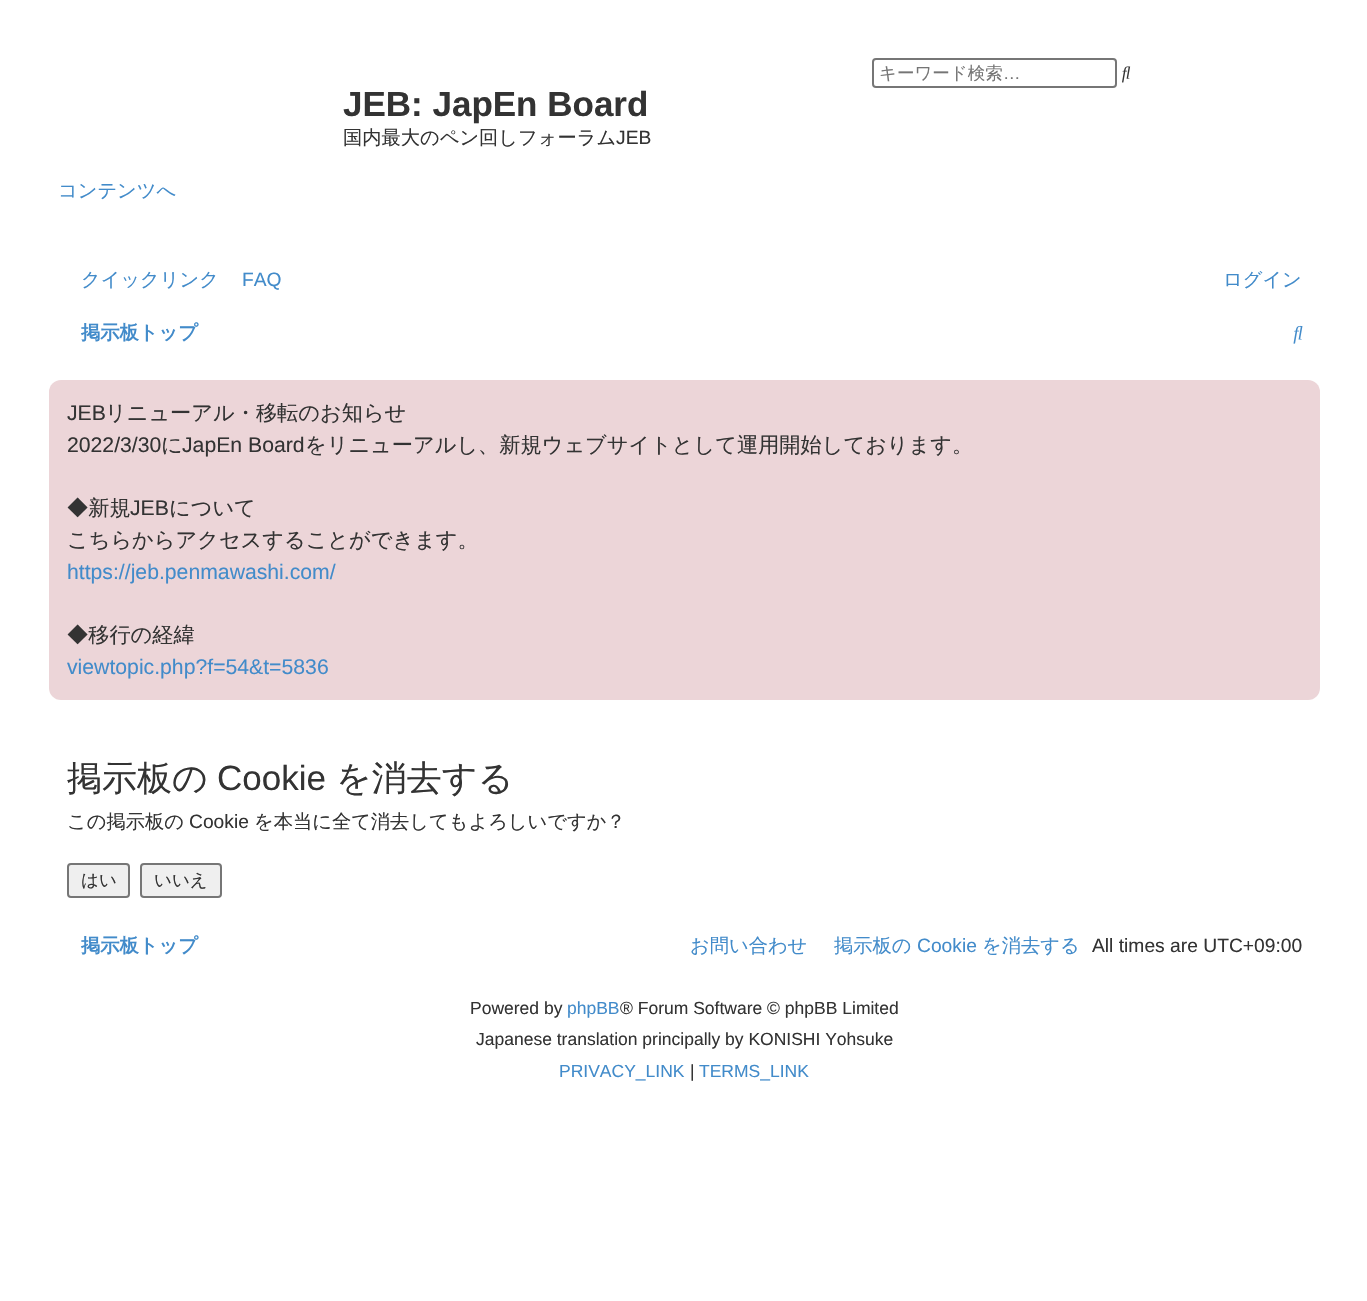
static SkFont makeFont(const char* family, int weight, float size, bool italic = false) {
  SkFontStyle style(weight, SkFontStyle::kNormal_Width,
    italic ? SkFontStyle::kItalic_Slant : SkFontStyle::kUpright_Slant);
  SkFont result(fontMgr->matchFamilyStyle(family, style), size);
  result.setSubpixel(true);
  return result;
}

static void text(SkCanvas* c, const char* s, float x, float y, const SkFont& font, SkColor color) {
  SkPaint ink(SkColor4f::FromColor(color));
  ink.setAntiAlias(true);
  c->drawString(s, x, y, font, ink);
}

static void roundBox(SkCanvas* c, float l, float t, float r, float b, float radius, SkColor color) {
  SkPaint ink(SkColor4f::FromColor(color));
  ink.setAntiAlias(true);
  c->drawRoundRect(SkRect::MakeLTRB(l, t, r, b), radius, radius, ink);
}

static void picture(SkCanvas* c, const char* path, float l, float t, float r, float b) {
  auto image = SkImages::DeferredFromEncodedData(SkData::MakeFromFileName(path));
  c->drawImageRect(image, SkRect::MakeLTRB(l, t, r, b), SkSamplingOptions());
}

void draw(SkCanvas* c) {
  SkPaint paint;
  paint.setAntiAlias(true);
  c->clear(0xffffffff);
  paint.setStyle(SkPaint::kStroke_Style);
  paint.setStrokeWidth(2);
  paint.setColor(0xff767676);
  c->drawRoundRect(SkRect::MakeLTRB(873, 59, 1116, 87), 3, 3, paint);
  SkFont face1 = makeFont("WenQuanYi Zen Hei", 500, 17.5f);
  text(c, "キーワード検索", 879, 79, face1, 0xff757575);
  SkFont face2 = makeFont("Liberation Sans", 400, 17.5f);
  text(c, "…", 1003, 79, face2, 0xff757575);
  picture(c, "img_01.png", 1122, 66, 1131, 83);
  SkFont face3 = makeFont("Liberation Sans", 700, 35);
  text(c, "JEB: JapEn Board", 343, 116, face3, 0xff333333);
  SkFont face4 = makeFont("WenQuanYi Zen Hei", 500, 19.25f);
  text(c, "国内最大のペン回しフォーラム", 343, 144, face4, 0xff333333);
  SkFont face5 = makeFont("Liberation Sans", 400, 19.25f);
  text(c, "JEB", 616, 144, face5, 0xff333333);
  text(c, "コンテンツへ", 58, 197, face4, 0xff428bca);
  text(c, "クイックリンク", 81, 286, face4, 0xff428bca);
  text(c, "FAQ", 242, 286, face5, 0xff428bca);
  text(c, "ログイン", 1223, 286, face4, 0xff428bca);
  SkFont face6 = makeFont("WenQuanYi Zen Hei", 700, 19.25f);
  text(c, "掲示板トップ", 81, 339, face6, 0xff428bca);
  picture(c, "img_02.png", 1293, 325, 1303, 344);
  roundBox(c, 49, 380, 1320, 700, 12, 0xffecd5d8);
  SkFont face7 = makeFont("Liberation Sans", 400, 21.2f);
  text(c, "JEB", 67, 420, face7, 0xff333333);
  SkFont face8 = makeFont("WenQuanYi Zen Hei", 500, 21.2f);
  text(c, "リニューアル・移転のお知らせ", 105, 420, face8, 0xff333333);
  text(c, "2022/3/30", 67, 452, face7, 0xff333333);
  text(c, "に", 161, 452, face8, 0xff333333);
  text(c, "JapEn Board", 182, 452, face7, 0xff333333);
  text(c, "をリニューアルし、新規ウェブサイトとして運用開始しております。", 305, 452, face8, 0xff333333);
  text(c, "◆新規", 67, 515, face8, 0xff333333);
  text(c, "JEB", 130, 515, face7, 0xff333333);
  text(c, "について", 169, 515, face8, 0xff333333);
  text(c, "こちらからアクセスすることができます。", 67, 547, face8, 0xff333333);
  text(c, "https://jeb.penmawashi.com/", 67, 579, face7, 0xff428bca);
  text(c, "◆移行の経緯", 67, 642, face8, 0xff333333);
  text(c, "viewtopic.php?f=54&t=5836", 67, 674, face7, 0xff428bca);
  SkFont face9 = makeFont("WenQuanYi Zen Hei", 500, 35);
  text(c, "掲示板の", 67, 790, face9, 0xff333333);
  SkFont face10 = makeFont("Liberation Sans", 400, 35);
  text(c, "Cookie", 217, 790, face10, 0xff333333);
  text(c, "を消去する", 336, 790, face9, 0xff333333);
  text(c, "この掲示板の", 67, 828, face4, 0xff333333);
  text(c, "Cookie", 189, 828, face5, 0xff333333);
  text(c, "を本当に全て消去してもよろしいですか？", 254, 828, face4, 0xff333333);
  paint.setStyle(SkPaint::kFill_Style);
  paint.setColor(0xffefefef);
  c->drawRoundRect(SkRect::MakeLTRB(68, 864, 129, 897), 3, 3, paint);
  paint.setStyle(SkPaint::kStroke_Style);
  paint.setColor(0xff767676);
  c->drawRoundRect(SkRect::MakeLTRB(68, 864, 129, 897), 3, 3, paint);
  text(c, "はい", 81, 886, face1, 0xff333333);
  paint.setStyle(SkPaint::kFill_Style);
  paint.setColor(0xffefefef);
  c->drawRoundRect(SkRect::MakeLTRB(141, 864, 221, 897), 3, 3, paint);
  paint.setStyle(SkPaint::kStroke_Style);
  paint.setColor(0xff767676);
  c->drawRoundRect(SkRect::MakeLTRB(141, 864, 221, 897), 3, 3, paint);
  text(c, "いいえ", 154, 886, face1, 0xff333333);
  text(c, "掲示板トップ", 81, 952, face6, 0xff428bca);
  text(c, "お問い合わせ", 690, 952, face4, 0xff428bca);
  text(c, "掲示板の", 834, 952, face4, 0xff428bca);
  text(c, "Cookie", 917, 952, face5, 0xff428bca);
  text(c, "を消去する", 982, 952, face4, 0xff428bca);
  text(c, "All times are UTC+09:00", 1092, 952, face5, 0xff333333);
  text(c, "Powered by", 470, 1014, face2, 0xff333333);
  text(c, "phpBB", 567, 1014, face2, 0xff428bca);
  text(c, "® Forum Software © phpBB Limited", 620, 1014, face2, 0xff333333);
  text(c, "Japanese translation principally by KONISHI Yohsuke", 476, 1045, face2, 0xff333333);
  text(c, "PRIVACY_LINK", 559, 1077, face2, 0xff428bca);
  text(c, "|", 690, 1077, face2, 0xff333333);
  text(c, "TERMS_LINK", 699, 1077, face2, 0xff428bca);
}
